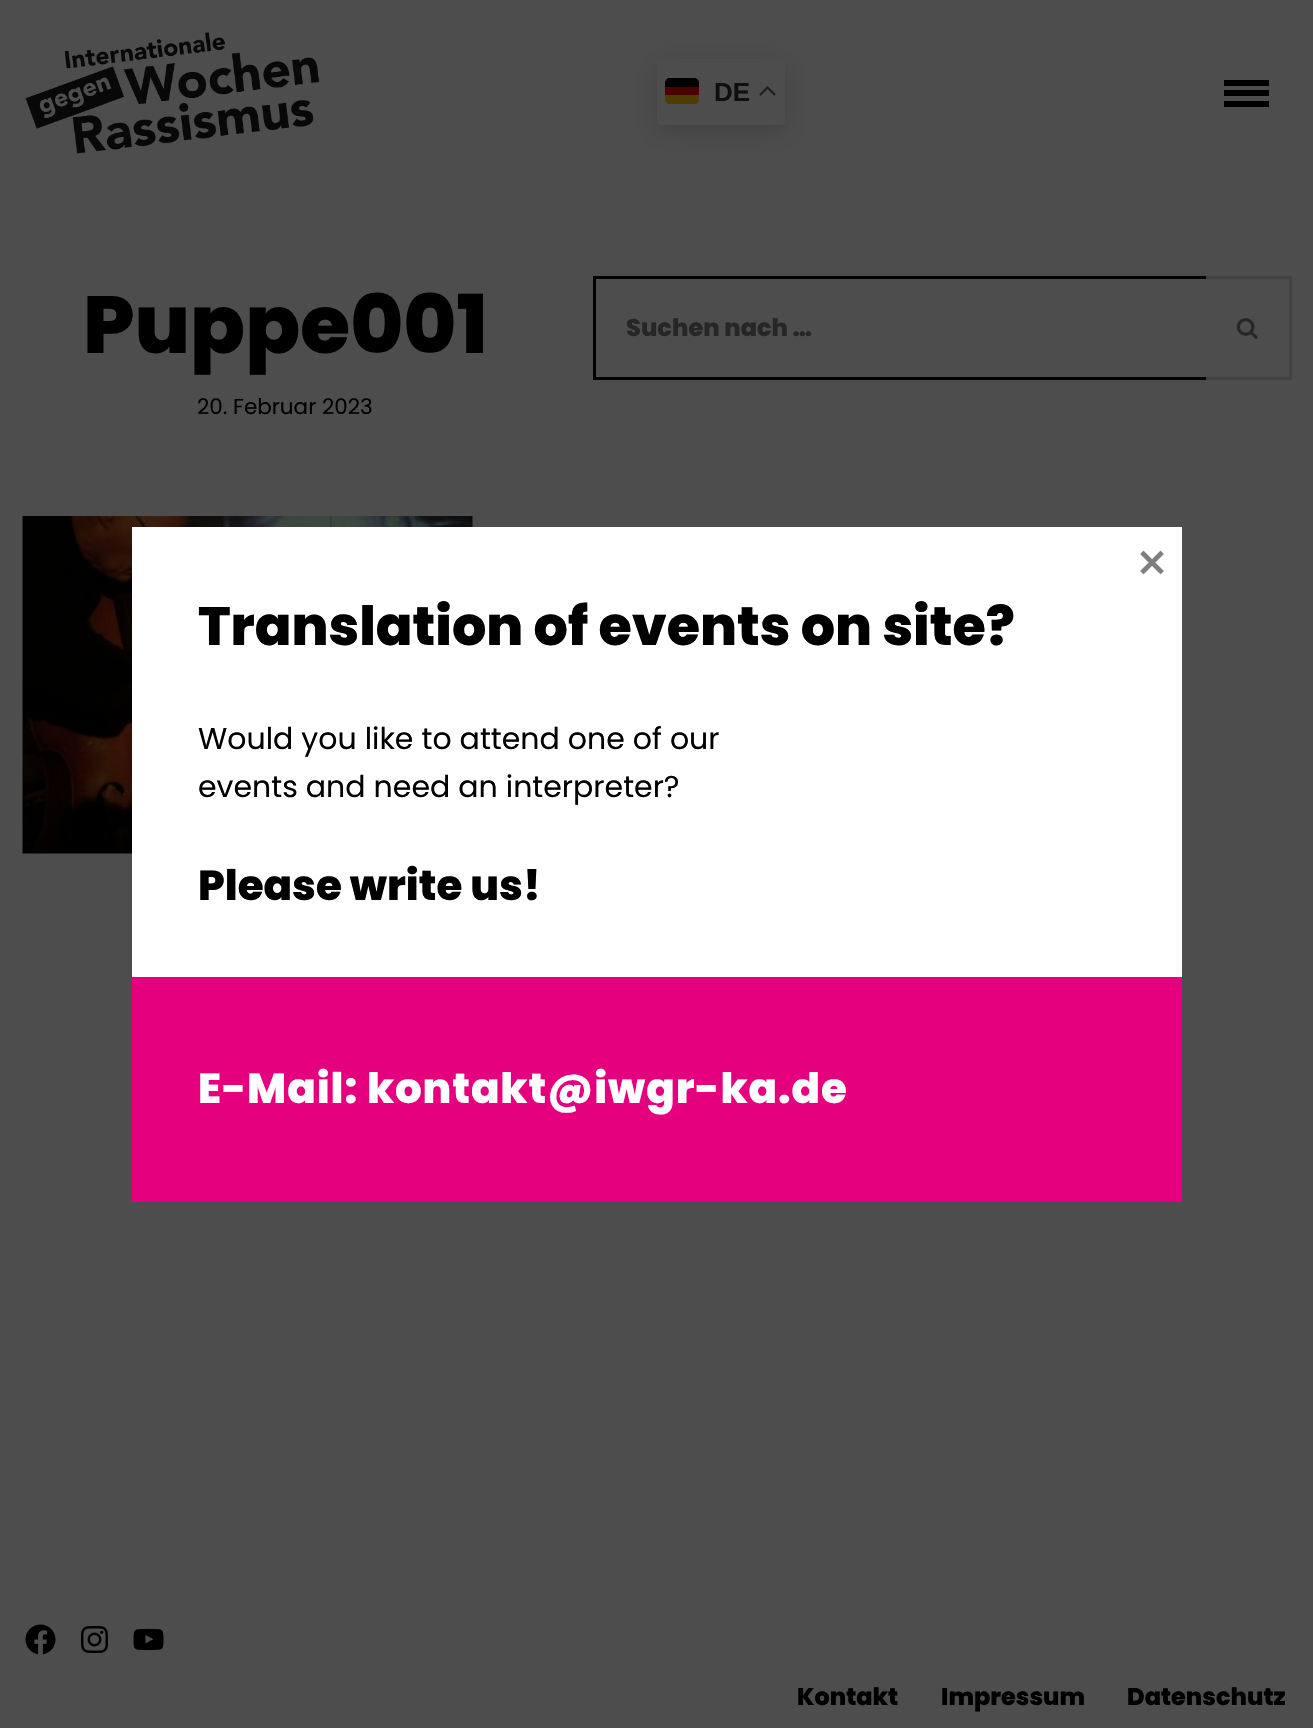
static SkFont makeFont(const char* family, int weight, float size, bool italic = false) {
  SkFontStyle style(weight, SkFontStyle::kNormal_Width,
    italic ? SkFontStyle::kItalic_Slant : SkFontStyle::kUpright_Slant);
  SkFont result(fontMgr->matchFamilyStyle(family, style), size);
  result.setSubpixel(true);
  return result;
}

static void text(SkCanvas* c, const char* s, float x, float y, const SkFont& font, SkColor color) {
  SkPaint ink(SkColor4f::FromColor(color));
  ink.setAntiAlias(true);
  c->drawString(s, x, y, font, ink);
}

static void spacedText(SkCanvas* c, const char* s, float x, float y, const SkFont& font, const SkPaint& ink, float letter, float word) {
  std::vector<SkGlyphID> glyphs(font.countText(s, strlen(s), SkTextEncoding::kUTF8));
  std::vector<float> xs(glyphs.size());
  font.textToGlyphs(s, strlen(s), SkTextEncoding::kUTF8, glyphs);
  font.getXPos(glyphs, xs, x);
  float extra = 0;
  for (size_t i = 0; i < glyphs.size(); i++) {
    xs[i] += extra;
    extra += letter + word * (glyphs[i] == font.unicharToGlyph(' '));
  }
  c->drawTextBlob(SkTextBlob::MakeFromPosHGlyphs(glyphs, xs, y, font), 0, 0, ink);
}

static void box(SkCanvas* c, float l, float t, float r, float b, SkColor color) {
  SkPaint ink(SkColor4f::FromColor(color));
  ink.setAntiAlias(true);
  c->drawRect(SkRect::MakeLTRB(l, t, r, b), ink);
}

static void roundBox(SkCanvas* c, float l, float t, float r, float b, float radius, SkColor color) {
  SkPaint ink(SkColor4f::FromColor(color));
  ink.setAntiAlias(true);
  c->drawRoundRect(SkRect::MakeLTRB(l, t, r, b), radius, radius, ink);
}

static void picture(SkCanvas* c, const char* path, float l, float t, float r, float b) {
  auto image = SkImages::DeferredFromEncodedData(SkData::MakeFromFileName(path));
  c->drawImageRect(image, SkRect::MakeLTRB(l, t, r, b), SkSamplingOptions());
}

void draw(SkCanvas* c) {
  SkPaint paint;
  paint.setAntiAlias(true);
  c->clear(0xff4d4d4d);
  picture(c, "img_01.png", 25, 32, 320, 154);
  paint.setColor(0x26000000);
  paint.setMaskFilter(SkMaskFilter::MakeBlur(kNormal_SkBlurStyle, 11));
  c->drawRoundRect(SkRect::MakeLTRB(657, 66, 785, 132), 3, 3, paint);
  paint.setMaskFilter(nullptr);
  roundBox(c, 657, 59, 785, 125, 3, 0xff4d4d4d);
  paint.setColor(0xff4d3d00);
  c->drawPath(SkPathBuilder().moveTo(665, 95).lineTo(699, 95).lineTo(699, 99).cubicTo(699, 102, 697, 104, 694, 104).lineTo(670, 104).cubicTo(667, 104, 665, 102, 665, 99).close().detach(), paint);
  paint.setColor(0xff000000);
  c->drawPath(SkPathBuilder().moveTo(670, 78).lineTo(694, 78).cubicTo(697, 78, 699, 80, 699, 83).lineTo(699, 87).lineTo(665, 87).lineTo(665, 83).cubicTo(665, 80, 667, 78, 670, 78).close().detach(), paint);
  box(c, 665, 87, 699, 95, 0xff4d0000);
  SkFont face1 = makeFont("Liberation Sans", 700, 26);
  text(c, "DE", 714, 101, face1, 0xff0f0f0f);
  picture(c, "img_02.png", 759, 86, 776, 96);
  box(c, 1224, 80, 1269, 86, 0xff000000);
  box(c, 1224, 90, 1269, 96, 0xff000000);
  box(c, 1224, 101, 1269, 107, 0xff000000);
  SkFont face2 = makeFont("Poppins", 800, 81);
  text(c, "Puppe001", 83, 353, face2, 0xff000000);
  SkFont face3 = makeFont("Poppins", 400, 21.5f);
  text(c, "20. Februar 2023", 197, 414, face3, 0xff000000);
  picture(c, "img_03.png", 22, 516, 473, 854);
  box(c, 593, 276, 1206, 279, 0xff000000);
  box(c, 593, 377, 1206, 380, 0xff000000);
  box(c, 593, 276, 596, 380, 0xff000000);
  SkFont face4 = makeFont("Poppins", 800, 24);
  text(c, "Suchen nach …", 626, 336, face4, 0xff262626);
  box(c, 1206, 276, 1292, 279, 0xff424242);
  box(c, 1289, 276, 1292, 380, 0xff424242);
  box(c, 1206, 377, 1292, 380, 0xff424242);
  picture(c, "img_04.png", 1236, 318, 1258, 339);
  picture(c, "img_05.png", 25, 1624, 56, 1655);
  picture(c, "img_06.png", 81, 1626, 108, 1653);
  picture(c, "img_07.png", 133, 1628, 164, 1651);
  text(c, "Kontakt", 797, 1705, face4, 0xff000000);
  text(c, "Impressum", 941, 1705, face4, 0xff000000);
  text(c, "Datenschutz", 1127, 1705, face4, 0xff000000);
  box(c, 132, 527, 1182, 977, 0xffffffff);
  picture(c, "img_08.png", 1140, 550, 1164, 575);
  SkFont face5 = makeFont("Poppins", 800, 54);
  text(c, "Translation of events on site?", 198, 645, face5, 0xff000000);
  SkFont face6 = makeFont("Poppins", 400, 30);
  text(c, "Would you like to attend one of our", 198, 749, face6, 0xff000000);
  text(c, "events and need an interpreter?", 198, 797, face6, 0xff000000);
  SkFont face7 = makeFont("Poppins", 800, 42);
  text(c, "Please write us!", 198, 900, face7, 0xff000000);
  box(c, 132, 977, 1182, 1202, 0xffe5007e);
  paint.setColor(0xffffffff);
  spacedText(c, "E-Mail: kontakt@iwgr-ka.de", 198, 1103, face7, paint, 0.9f, 0);
}
